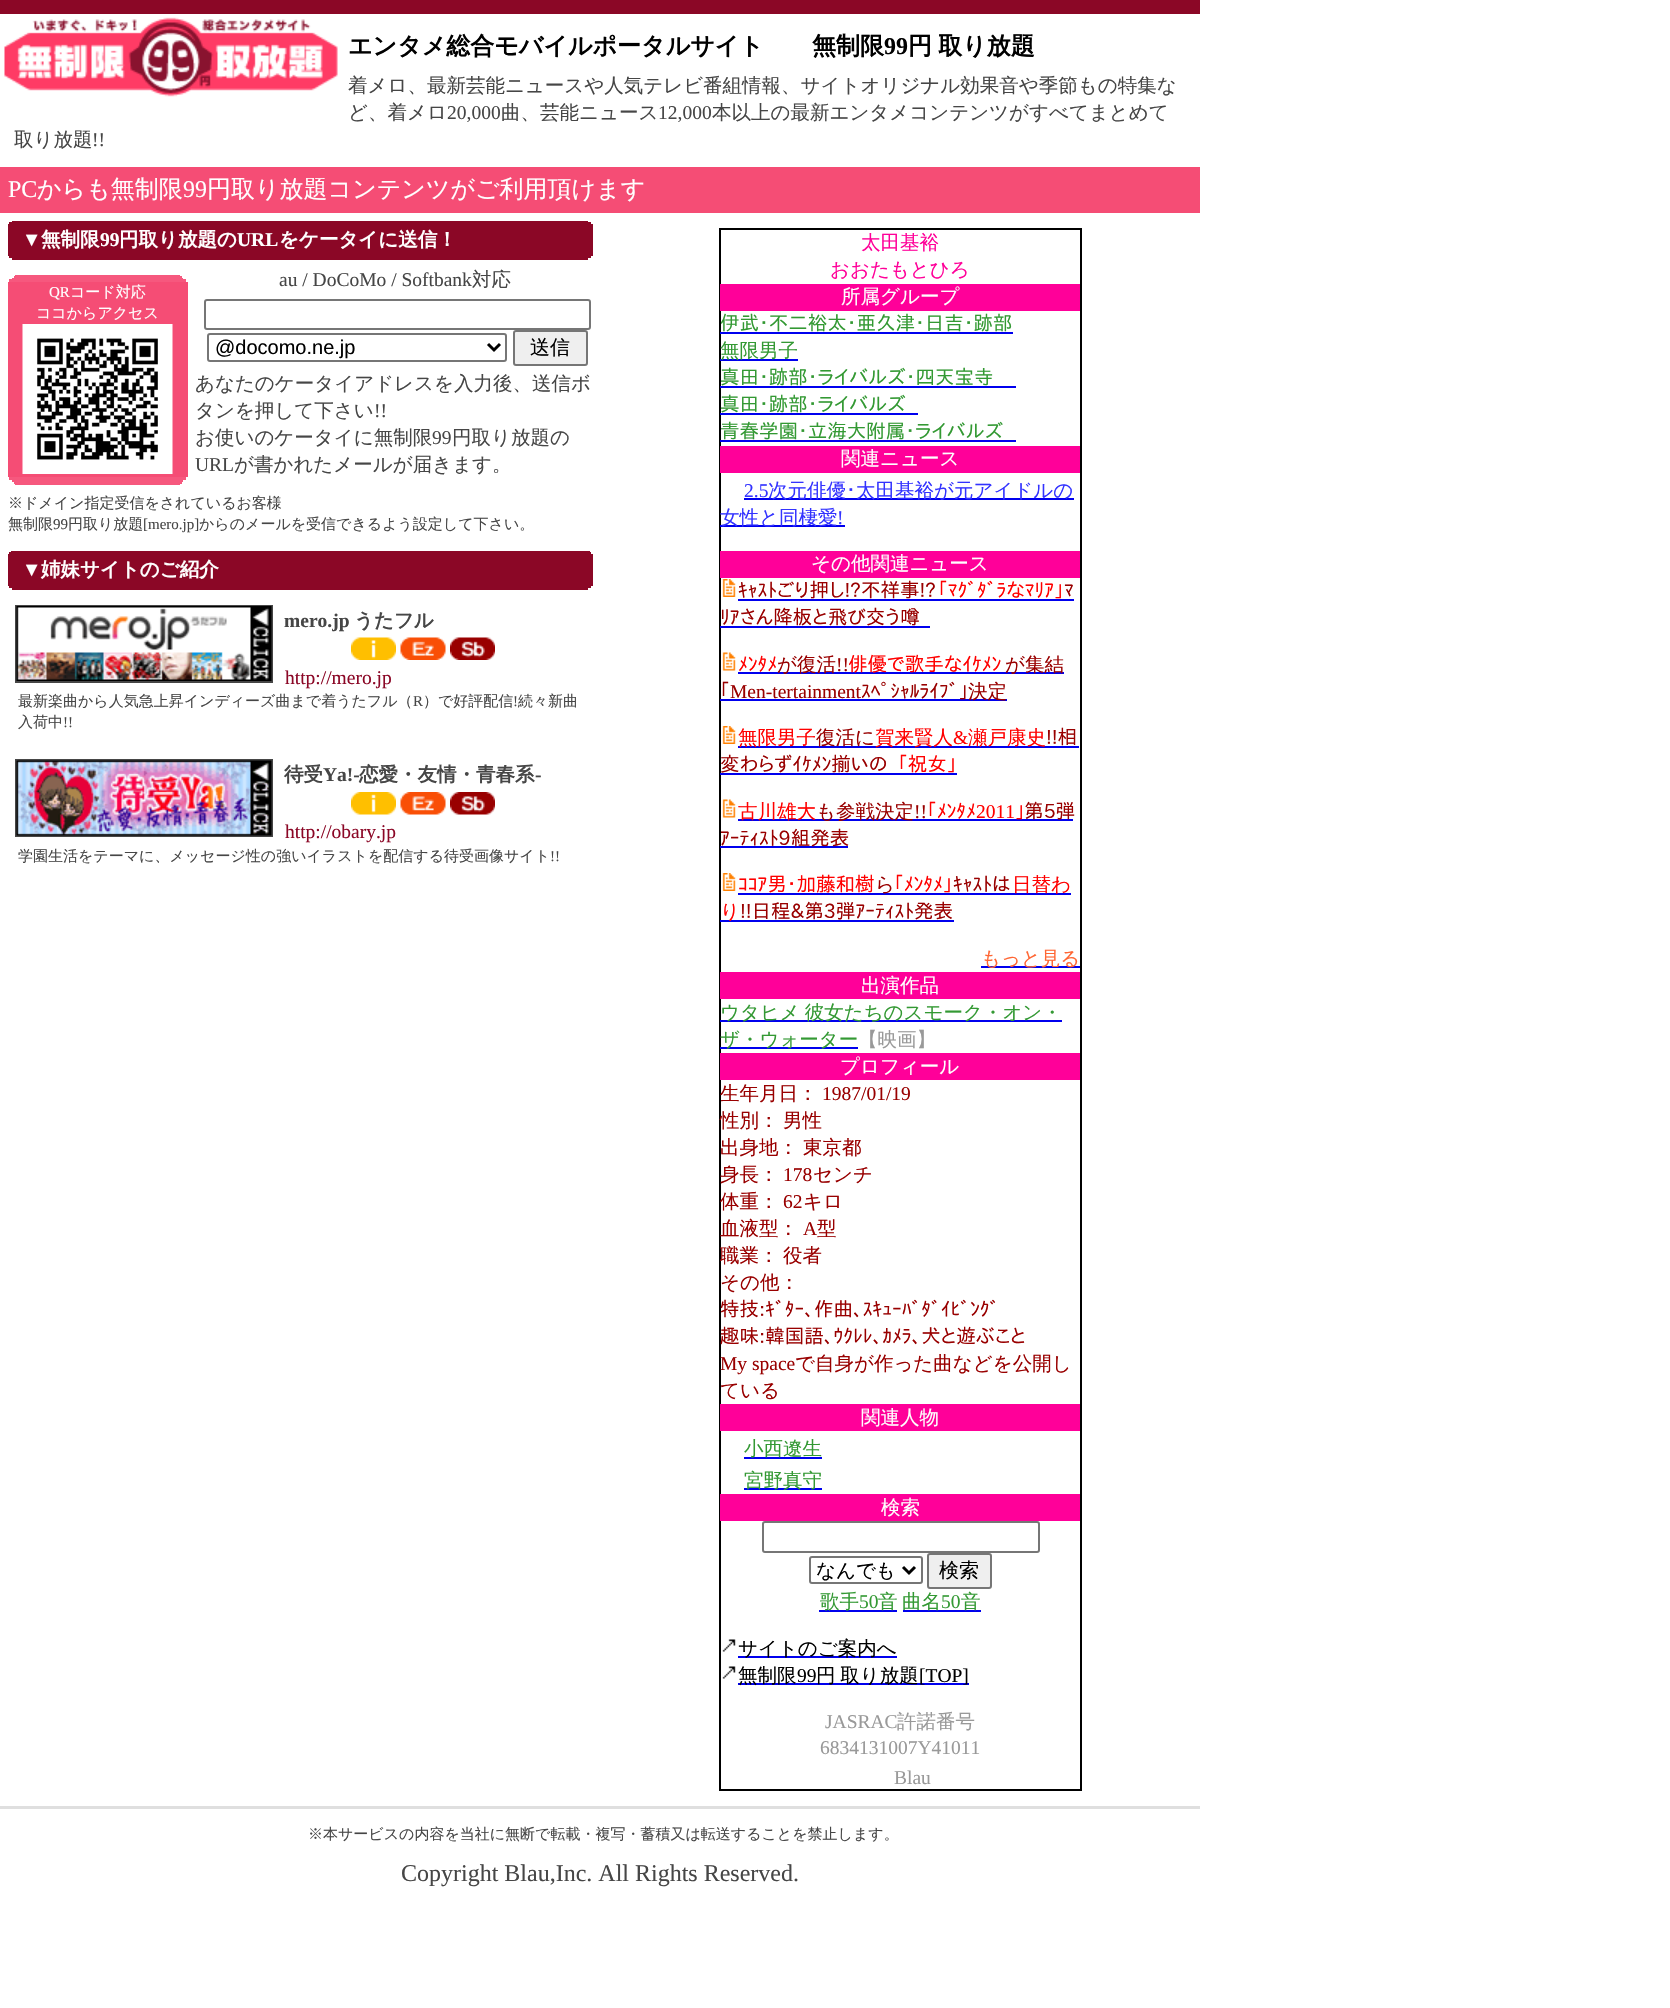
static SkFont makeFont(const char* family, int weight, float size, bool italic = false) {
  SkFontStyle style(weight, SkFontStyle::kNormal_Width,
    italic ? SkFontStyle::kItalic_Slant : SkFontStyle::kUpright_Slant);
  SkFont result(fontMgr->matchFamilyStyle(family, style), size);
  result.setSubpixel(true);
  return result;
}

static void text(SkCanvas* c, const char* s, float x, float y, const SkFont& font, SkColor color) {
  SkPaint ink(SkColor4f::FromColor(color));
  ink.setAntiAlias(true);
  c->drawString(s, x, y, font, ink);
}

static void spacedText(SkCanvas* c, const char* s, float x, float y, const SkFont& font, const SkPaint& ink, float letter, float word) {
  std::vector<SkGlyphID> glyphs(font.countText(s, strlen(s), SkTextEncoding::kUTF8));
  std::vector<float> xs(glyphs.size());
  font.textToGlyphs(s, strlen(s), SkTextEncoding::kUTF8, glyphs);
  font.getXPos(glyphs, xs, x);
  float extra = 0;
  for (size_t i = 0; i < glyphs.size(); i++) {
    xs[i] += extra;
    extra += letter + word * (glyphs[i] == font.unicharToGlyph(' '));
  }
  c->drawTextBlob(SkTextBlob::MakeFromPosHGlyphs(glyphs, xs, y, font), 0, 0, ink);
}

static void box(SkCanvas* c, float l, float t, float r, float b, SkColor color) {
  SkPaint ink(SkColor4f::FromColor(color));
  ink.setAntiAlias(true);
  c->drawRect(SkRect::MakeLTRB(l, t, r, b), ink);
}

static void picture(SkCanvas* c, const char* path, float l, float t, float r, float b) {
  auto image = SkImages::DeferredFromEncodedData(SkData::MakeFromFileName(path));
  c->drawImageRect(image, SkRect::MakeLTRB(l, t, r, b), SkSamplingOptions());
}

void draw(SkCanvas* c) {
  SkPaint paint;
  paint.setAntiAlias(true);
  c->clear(0xffffffff);
  box(c, 0, 0, 1200, 14, 0xff8b0726);
  picture(c, "img_01.png", 4, 17, 338, 97);
  SkFont face1 = makeFont("WenQuanYi Zen Hei", 700, 24);
  text(c, "エンタメ総合モバイルポータルサイト　　無制限", 348, 54, face1, 0xff000000);
  SkFont face2 = makeFont("Liberation Serif", 700, 24);
  text(c, "99", 884, 54, face2, 0xff000000);
  paint.setColor(0xff000000);
  spacedText(c, "円 取り放題", 908, 54, face1, paint, 0, -1);
  SkFont face3 = makeFont("WenQuanYi Zen Hei", 500, 19.5f);
  text(c, "着メロ、最新芸能ニュースや人気テレビ番組情報、サイトオリジナル効果音や季節もの特集な", 348, 92, face3, 0xff464646);
  text(c, "ど、着メロ", 348, 119, face3, 0xff464646);
  SkFont face4 = makeFont("Liberation Serif", 400, 19.5f);
  text(c, "20,000", 447, 119, face4, 0xff464646);
  text(c, "曲、芸能ニュース", 501, 119, face3, 0xff464646);
  text(c, "12,000", 658, 119, face4, 0xff464646);
  text(c, "本以上の最新エンタメコンテンツがすべてまとめて", 712, 119, face3, 0xff464646);
  text(c, "取り放題", 14, 146, face3, 0xff464646);
  text(c, "!!", 92, 146, face4, 0xff464646);
  box(c, 0, 167, 1200, 213, 0xfff54d75);
  SkFont face5 = makeFont("Liberation Serif", 400, 24);
  text(c, "PC", 8, 197, face5, 0xffffffff);
  SkFont face6 = makeFont("WenQuanYi Zen Hei", 500, 24);
  text(c, "からも無制限", 37, 197, face6, 0xffffffff);
  text(c, "99", 183, 197, face5, 0xffffffff);
  text(c, "円取り放題コンテンツがご利用頂けます", 207, 197, face6, 0xffffffff);
  box(c, 8, 227, 593, 254, 0xff8b0726);
  box(c, 12, 221, 588, 222, 0xff8b0726);
  box(c, 9, 222, 591, 224, 0xff8b0726);
  box(c, 8, 224, 593, 227, 0xff8b0726);
  SkFont face7 = makeFont("Liberation Serif", 700, 19.5f);
  text(c, "▼", 22, 246, face7, 0xffffffff);
  SkFont face8 = makeFont("WenQuanYi Zen Hei", 700, 19.5f);
  text(c, "無制限", 41, 246, face8, 0xffffffff);
  text(c, "99", 100, 246, face7, 0xffffffff);
  text(c, "円取り放題の", 119, 246, face8, 0xffffffff);
  text(c, "URL", 237, 246, face7, 0xffffffff);
  text(c, "をケータイに送信！", 279, 246, face8, 0xffffffff);
  box(c, 8, 254, 593, 256, 0xff8b0726);
  box(c, 9, 256, 591, 258, 0xff8b0726);
  box(c, 12, 258, 588, 260, 0xff8b0726);
  box(c, 8, 282, 188, 477, 0xfff54d75);
  box(c, 15, 275, 180, 276, 0xfff6587e);
  box(c, 14, 276, 182, 278, 0xfff6587e);
  box(c, 12, 278, 183, 279, 0xfff6587e);
  box(c, 9, 279, 186, 282, 0xfff6587e);
  SkFont face9 = makeFont("Liberation Serif", 400, 15);
  text(c, "QR", 49, 297, face9, 0xffffffff);
  SkFont face10 = makeFont("WenQuanYi Zen Hei", 500, 15);
  text(c, "コード対応", 70, 297, face10, 0xffffffff);
  text(c, "ココからアクセス", 36, 318, face10, 0xffffffff);
  picture(c, "img_02.png", 22, 324, 173, 474);
  box(c, 9, 477, 186, 480, 0xfff6587e);
  box(c, 12, 480, 183, 482, 0xfff6587e);
  box(c, 14, 482, 182, 484, 0xfff6587e);
  box(c, 15, 484, 180, 485, 0xfff6587e);
  text(c, "au / DoCoMo / Softbank", 279, 286, face4, 0xff464646);
  text(c, "対応", 472, 286, face3, 0xff464646);
  paint.setStyle(SkPaint::kStroke_Style);
  paint.setStrokeWidth(2);
  paint.setColor(0xff767676);
  c->drawRoundRect(SkRect::MakeLTRB(205, 300, 590, 329), 2, 2, paint);
  c->drawRoundRect(SkRect::MakeLTRB(208, 334, 506, 361), 2, 2, paint);
  paint.setStrokeWidth(3);
  paint.setColor(0xff000000);
  c->drawPath(SkPathBuilder().moveTo(488, 344).lineTo(494, 350).lineTo(500, 344).detach(), paint);
  SkFont face11 = makeFont("Liberation Sans", 400, 20);
  text(c, "@docomo.ne.jp", 215, 354, face11, 0xff000000);
  paint.setStyle(SkPaint::kFill_Style);
  paint.setColor(0xffefefef);
  c->drawRoundRect(SkRect::MakeLTRB(514, 331, 587, 365), 2, 2, paint);
  paint.setStyle(SkPaint::kStroke_Style);
  paint.setStrokeWidth(2);
  paint.setColor(0xff767676);
  c->drawRoundRect(SkRect::MakeLTRB(514, 331, 587, 365), 2, 2, paint);
  SkFont face12 = makeFont("WenQuanYi Zen Hei", 500, 20);
  text(c, "送信", 530, 354, face12, 0xff000000);
  text(c, "あなたのケータイアドレスを入力後、送信ボ", 195, 390, face3, 0xff464646);
  text(c, "タンを押して下さい", 195, 417, face3, 0xff464646);
  text(c, "!!", 374, 417, face4, 0xff464646);
  text(c, "お使いのケータイに無制限", 195, 444, face3, 0xff464646);
  text(c, "99", 432, 444, face4, 0xff464646);
  text(c, "円取り放題の", 452, 444, face3, 0xff464646);
  text(c, "URL", 195, 471, face4, 0xff464646);
  text(c, "が書かれたメールが届きます。", 234, 471, face3, 0xff464646);
  text(c, "※ドメイン指定受信をされているお客様", 8, 508, face10, 0xff464646);
  text(c, "無制限", 8, 529, face10, 0xff464646);
  text(c, "99", 53, 529, face9, 0xff464646);
  text(c, "円取り放題", 68, 529, face10, 0xff464646);
  text(c, "[mero.jp]", 143, 529, face9, 0xff464646);
  text(c, "からのメールを受信できるよう設定して下さい。", 199, 529, face10, 0xff464646);
  box(c, 8, 557, 593, 584, 0xff8b0726);
  box(c, 11, 551, 590, 552, 0xff8b0726);
  box(c, 9, 552, 591, 554, 0xff8b0726);
  box(c, 8, 554, 593, 557, 0xff8b0726);
  text(c, "▼", 22, 576, face7, 0xffffffff);
  text(c, "姉妹サイトのご紹介", 41, 576, face8, 0xffffffff);
  box(c, 8, 584, 593, 586, 0xff8b0726);
  box(c, 9, 586, 591, 588, 0xff8b0726);
  box(c, 12, 588, 588, 590, 0xff8b0726);
  paint.setColor(0xff464646);
  c->drawRect(SkRect::MakeLTRB(16, 606, 272, 682), paint);
  picture(c, "img_03.png", 16, 606, 272, 681);
  text(c, "mero.jp", 284, 627, face7, 0xff464646);
  text(c, "うたフル", 354, 627, face8, 0xff464646);
  picture(c, "img_04.png", 351, 637, 396, 660);
  picture(c, "img_05.png", 400, 637, 446, 660);
  picture(c, "img_06.png", 450, 637, 495, 660);
  text(c, "http://mero.jp", 285, 684, face4, 0xff8b0726);
  text(c, "最新楽曲から人気急上昇インディーズ曲まで着うたフル（", 18, 706, face10, 0xff464646);
  text(c, "R", 413, 706, face9, 0xff464646);
  text(c, "）で好評配信", 423, 706, face10, 0xff464646);
  text(c, "!", 513, 706, face9, 0xff464646);
  text(c, "続々新曲", 518, 706, face10, 0xff464646);
  text(c, "入荷中", 18, 727, face10, 0xff464646);
  text(c, "!!", 63, 727, face9, 0xff464646);
  c->drawRect(SkRect::MakeLTRB(16, 760, 272, 836), paint);
  picture(c, "img_07.png", 16, 760, 272, 836);
  text(c, "待受", 284, 781, face8, 0xff464646);
  text(c, "Ya!-", 323, 781, face7, 0xff464646);
  text(c, "恋愛・友情・青春系", 359, 781, face8, 0xff464646);
  text(c, "-", 535, 781, face7, 0xff464646);
  picture(c, "img_08.png", 351, 792, 396, 815);
  picture(c, "img_09.png", 400, 792, 446, 815);
  picture(c, "img_10.png", 450, 792, 495, 815);
  text(c, "http://obary.jp", 285, 838, face4, 0xff8b0726);
  text(c, "学園生活をテーマに、メッセージ性の強いイラストを配信する待受画像サイト", 18, 861, face10, 0xff464646);
  text(c, "!!", 550, 861, face9, 0xff464646);
  box(c, 0, 1806, 1200, 1809, 0xffdfdfdf);
  text(c, "※本サービスの内容を当社に無断で転載・複写・蓄積又は転送することを禁止します。", 308, 1839, face10, 0xff464646);
  text(c, "Copyright Blau,Inc. All Rights Reserved.", 401, 1881, face5, 0xff464646);
  paint.setColor(0xff000000);
  c->drawRect(SkRect::MakeLTRB(720, 229, 1081, 1790), paint);
  text(c, "太田基裕", 861, 249, face3, 0xffff0099);
  text(c, "おおたもとひろ", 830, 276, face3, 0xffff0099);
  box(c, 720, 284, 1080, 311, 0xffff0099);
  text(c, "所属グループ", 841, 303, face3, 0xffffffff);
  SkFont face13 = makeFont("IPAPGothic", 400, 19.5f);
  text(c, "伊武･不二裕太･亜久津･日吉･跡部", 720, 330, face13, 0xff339933);
  box(c, 720, 332, 1013, 334, 0xff0000ee);
  box(c, 720, 359, 798, 361, 0xff0000ee);
  text(c, "無限男子", 720, 357, face3, 0xff339933);
  text(c, "真田･跡部･ライバルズ・四天宝寺", 720, 384, face13, 0xff339933);
  box(c, 720, 386, 1016, 388, 0xff0000ee);
  text(c, "真田･跡部･ライバルズ", 720, 411, face13, 0xff339933);
  box(c, 720, 413, 918, 415, 0xff0000ee);
  text(c, "青春学園･立海大附属･ライバルズ", 720, 438, face13, 0xff339933);
  box(c, 720, 440, 1016, 442, 0xff0000ee);
  box(c, 720, 446, 1080, 473, 0xffff0099);
  text(c, "関連ニュース", 841, 465, face3, 0xffffffff);
  text(c, "2.5", 744, 497, face4, 0xff3333ff);
  box(c, 744, 498, 1074, 500, 0xff0000ee);
  text(c, "次元俳優", 768, 497, face3, 0xff3333ff);
  text(c, "･", 846, 497, face13, 0xff3333ff);
  text(c, "太田基裕が元アイドルの", 856, 497, face3, 0xff3333ff);
  box(c, 720, 525, 845, 527, 0xff0000ee);
  text(c, "女性と同棲愛", 720, 524, face3, 0xff3333ff);
  text(c, "!", 837, 524, face4, 0xff3333ff);
  box(c, 720, 551, 1080, 578, 0xffff0099);
  text(c, "その他関連ニュース", 811, 570, face3, 0xffffffff);
  picture(c, "img_11.png", 722, 579, 736, 597);
  text(c, "ｷｬｽﾄごり押し!?不祥事!?", 738, 597, face13, 0xff990000);
  text(c, "｢ﾏｸﾞﾀﾞﾗなﾏﾘｱ｣", 938, 597, face13, 0xffff0000);
  text(c, "ﾏ", 1064, 597, face13, 0xff990000);
  box(c, 738, 599, 1074, 601, 0xff0000ee);
  text(c, "ﾘｱさん降板と飛び交う噂", 720, 624, face13, 0xff990000);
  box(c, 720, 626, 930, 628, 0xff0000ee);
  picture(c, "img_12.png", 722, 652, 736, 671);
  text(c, "ﾒﾝﾀﾒ", 738, 671, face13, 0xffff0000);
  box(c, 738, 672, 1064, 674, 0xff0000ee);
  text(c, "が復活", 777, 671, face3, 0xff990000);
  text(c, "!!", 836, 671, face4, 0xff990000);
  text(c, "俳優で歌手なｲｹﾒﾝ", 848, 671, face13, 0xffff0000);
  text(c, "が集結", 1005, 671, face3, 0xff990000);
  text(c, "｢", 720, 698, face13, 0xff990000);
  text(c, "Men-tertainment", 730, 698, face4, 0xff990000);
  box(c, 720, 699, 1007, 701, 0xff0000ee);
  text(c, "ｽﾍﾟｼｬﾙﾗｲﾌﾞ｣", 861, 698, face13, 0xff990000);
  text(c, "決定", 968, 698, face3, 0xff990000);
  picture(c, "img_11.png", 722, 726, 736, 744);
  box(c, 738, 746, 1079, 748, 0xff0000ee);
  text(c, "無限男子", 738, 744, face3, 0xffff0000);
  text(c, "復活に", 816, 744, face3, 0xff990000);
  text(c, "賀来賢人", 875, 744, face3, 0xffff0000);
  text(c, "&", 953, 744, face4, 0xffff0000);
  text(c, "瀬戸康史", 968, 744, face3, 0xffff0000);
  text(c, "!!相", 1046, 744, face13, 0xff990000);
  text(c, "変わらずｲｹﾒﾝ揃いの", 720, 771, face13, 0xff990000);
  box(c, 720, 773, 957, 775, 0xff0000ee);
  text(c, "｢祝女｣", 898, 771, face13, 0xffff0000);
  picture(c, "img_12.png", 722, 799, 736, 818);
  box(c, 738, 819, 1073, 821, 0xff0000ee);
  text(c, "古川雄大", 738, 818, face3, 0xffff0000);
  text(c, "も参戦決定", 816, 818, face3, 0xff990000);
  text(c, "!!", 914, 818, face4, 0xff990000);
  text(c, "｢ﾒﾝﾀﾒ", 927, 818, face13, 0xffff0000);
  text(c, "2011", 976, 818, face4, 0xffff0000);
  text(c, "｣", 1015, 818, face13, 0xffff0000);
  text(c, "第5弾", 1024, 818, face13, 0xff990000);
  box(c, 720, 846, 848, 848, 0xff0000ee);
  text(c, "ｱｰﾃｨｽﾄ9組発表", 720, 845, face13, 0xff990000);
  picture(c, "img_11.png", 722, 873, 736, 891);
  text(c, "ｺｺｱ男･加藤和樹", 738, 891, face13, 0xffff0000);
  box(c, 738, 893, 1071, 895, 0xff0000ee);
  text(c, "ら", 875, 891, face3, 0xff990000);
  text(c, "｢ﾒﾝﾀﾒ｣", 894, 891, face13, 0xffff0000);
  text(c, "ｷｬｽﾄは", 953, 891, face13, 0xff990000);
  text(c, "日替わ", 1012, 891, face3, 0xffff0000);
  box(c, 720, 920, 954, 922, 0xff0000ee);
  text(c, "り", 720, 918, face3, 0xffff0000);
  text(c, "!!日程&第3弾ｱｰﾃｨｽﾄ発表", 740, 918, face13, 0xff990000);
  box(c, 981, 966, 1080, 968, 0xff0000ee);
  text(c, "もっと見る", 981, 965, face3, 0xffff6633);
  box(c, 720, 972, 1080, 999, 0xffff0099);
  text(c, "出演作品", 861, 992, face3, 0xffffffff);
  box(c, 720, 1020, 1062, 1022, 0xff0000ee);
  paint.setStyle(SkPaint::kFill_Style);
  paint.setColor(0xff339933);
  spacedText(c, "ウタヒメ 彼女たちのスモーク・オン・", 720, 1019, face3, paint, 0, -1);
  box(c, 720, 1047, 858, 1049, 0xff0000ee);
  text(c, "ザ・ウォーター", 720, 1046, face3, 0xff339933);
  text(c, "【映画】", 858, 1046, face3, 0xff999999);
  box(c, 720, 1053, 1080, 1080, 0xffff0099);
  text(c, "プロフィール", 840, 1073, face3, 0xffffffff);
  text(c, "生年月日：", 720, 1100, face3, 0xff990000);
  text(c, "1987/01/19", 822, 1100, face4, 0xff990000);
  text(c, "性別：", 720, 1127, face3, 0xff990000);
  text(c, "男性", 783, 1127, face3, 0xff990000);
  text(c, "出身地：", 720, 1154, face3, 0xff990000);
  text(c, "東京都", 803, 1154, face3, 0xff990000);
  text(c, "身長：", 720, 1181, face3, 0xff990000);
  text(c, "178", 783, 1181, face4, 0xff990000);
  text(c, "センチ", 813, 1181, face3, 0xff990000);
  text(c, "体重：", 720, 1208, face3, 0xff990000);
  text(c, "62", 783, 1208, face4, 0xff990000);
  text(c, "キロ", 803, 1208, face3, 0xff990000);
  text(c, "血液型：", 720, 1235, face3, 0xff990000);
  text(c, "A", 803, 1235, face4, 0xff990000);
  text(c, "型", 817, 1235, face3, 0xff990000);
  text(c, "職業：", 720, 1262, face3, 0xff990000);
  text(c, "役者", 783, 1262, face3, 0xff990000);
  text(c, "その他：", 720, 1289, face3, 0xff990000);
  text(c, "特技:ｷﾞﾀｰ､作曲､ｽｷｭｰﾊﾞﾀﾞｲﾋﾞﾝｸﾞ", 720, 1316, face13, 0xff990000);
  text(c, "趣味:韓国語､ｳｸﾚﾚ､ｶﾒﾗ､犬と遊ぶこと", 720, 1343, face13, 0xff990000);
  text(c, "My space", 720, 1370, face4, 0xff990000);
  text(c, "で自身が作った曲などを公開し", 795, 1370, face3, 0xff990000);
  text(c, "ている", 720, 1397, face3, 0xff990000);
  box(c, 720, 1404, 1080, 1431, 0xffff0099);
  text(c, "関連人物", 861, 1424, face3, 0xffffffff);
  box(c, 744, 1457, 822, 1459, 0xff0000ee);
  text(c, "小西遼生", 744, 1455, face3, 0xff339933);
  box(c, 744, 1488, 822, 1490, 0xff0000ee);
  text(c, "宮野真守", 744, 1487, face3, 0xff339933);
  box(c, 720, 1494, 1080, 1521, 0xffff0099);
  text(c, "検索", 881, 1514, face3, 0xffffffff);
  paint.setStyle(SkPaint::kStroke_Style);
  paint.setColor(0xff767676);
  c->drawRoundRect(SkRect::MakeLTRB(763, 1522, 1039, 1552), 2, 2, paint);
  c->drawRoundRect(SkRect::MakeLTRB(810, 1557, 922, 1583), 2, 2, paint);
  paint.setStrokeWidth(3);
  paint.setColor(0xff000000);
  c->drawPath(SkPathBuilder().moveTo(903, 1567).lineTo(909, 1573).lineTo(915, 1567).detach(), paint);
  text(c, "なんでも", 816, 1577, face3, 0xff000000);
  paint.setStyle(SkPaint::kFill_Style);
  paint.setColor(0xffefefef);
  c->drawRoundRect(SkRect::MakeLTRB(928, 1554, 991, 1588), 2, 2, paint);
  paint.setStyle(SkPaint::kStroke_Style);
  paint.setStrokeWidth(2);
  paint.setColor(0xff767676);
  c->drawRoundRect(SkRect::MakeLTRB(928, 1554, 991, 1588), 2, 2, paint);
  text(c, "検索", 939, 1577, face12, 0xff000000);
  box(c, 819, 1610, 897, 1612, 0xff0000ee);
  text(c, "歌手", 820, 1608, face3, 0xff339933);
  text(c, "50", 859, 1608, face4, 0xff339933);
  text(c, "音", 878, 1608, face3, 0xff339933);
  box(c, 903, 1610, 981, 1612, 0xff0000ee);
  text(c, "曲名", 902, 1608, face3, 0xff339933);
  text(c, "50", 941, 1608, face4, 0xff339933);
  text(c, "音", 961, 1608, face3, 0xff339933);
  picture(c, "img_13.png", 722, 1639, 736, 1652);
  box(c, 738, 1656, 897, 1658, 0xff0000ee);
  text(c, "サイトのご案内へ", 738, 1655, face3, 0xff000000);
  picture(c, "img_13.png", 722, 1666, 736, 1679);
  box(c, 738, 1683, 969, 1685, 0xff0000ee);
  text(c, "無制限", 738, 1682, face3, 0xff000000);
  text(c, "99", 797, 1682, face4, 0xff000000);
  paint.setStyle(SkPaint::kFill_Style);
  paint.setColor(0xff000000);
  spacedText(c, "円 取り放題", 816, 1682, face3, paint, 0, -1);
  text(c, "[TOP]", 919, 1682, face4, 0xff000000);
  text(c, "JASRAC", 825, 1728, face4, 0xff999999);
  text(c, "許諾番号", 897, 1728, face3, 0xff999999);
  text(c, "6834131007Y41011", 820, 1754, face4, 0xff999999);
  text(c, "Blau", 894, 1784, face4, 0xff999999);
}
